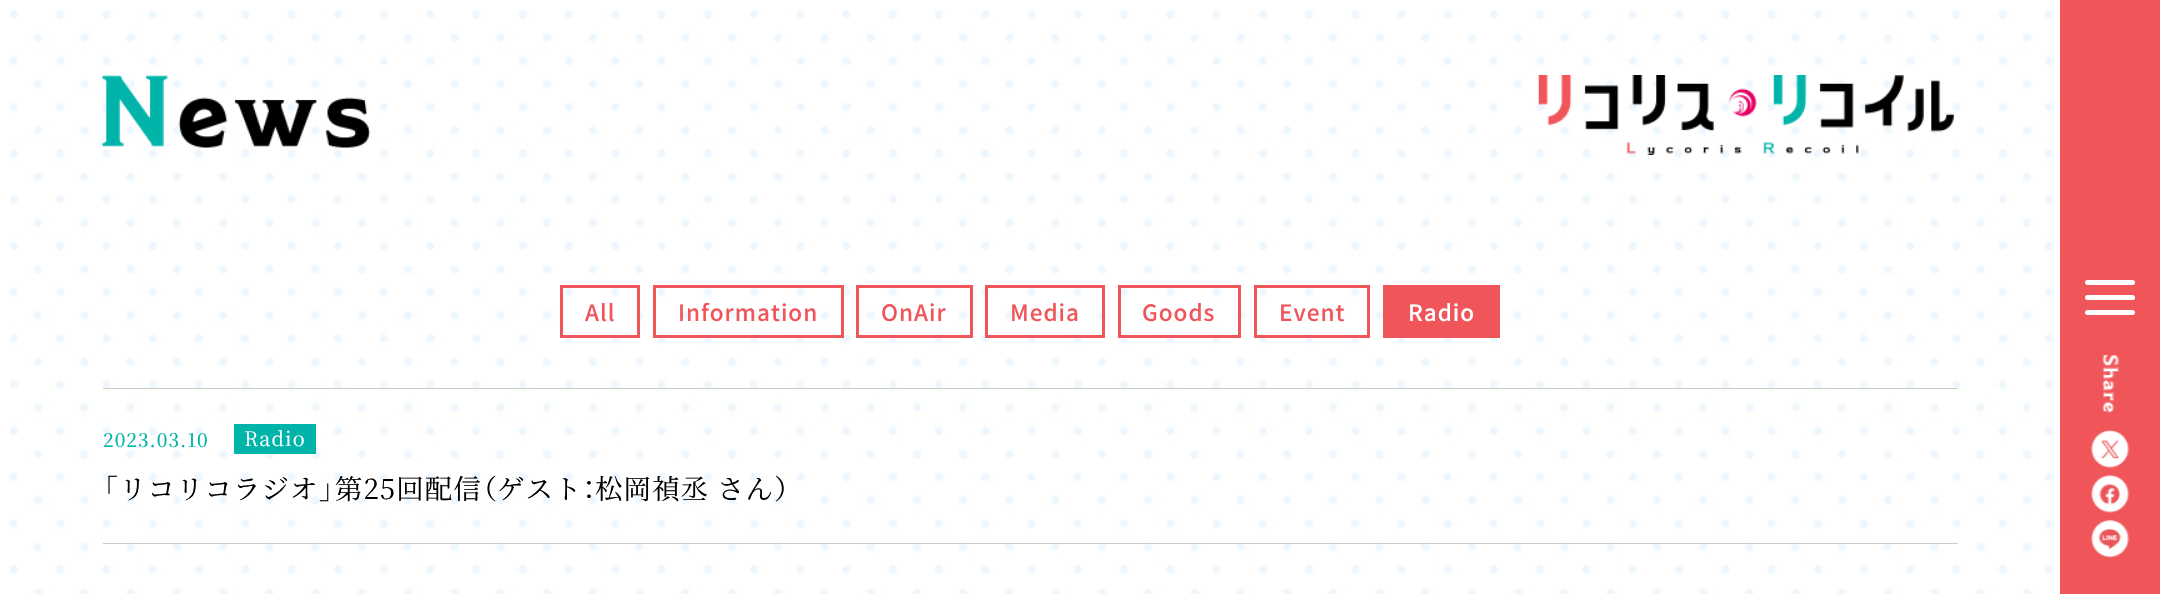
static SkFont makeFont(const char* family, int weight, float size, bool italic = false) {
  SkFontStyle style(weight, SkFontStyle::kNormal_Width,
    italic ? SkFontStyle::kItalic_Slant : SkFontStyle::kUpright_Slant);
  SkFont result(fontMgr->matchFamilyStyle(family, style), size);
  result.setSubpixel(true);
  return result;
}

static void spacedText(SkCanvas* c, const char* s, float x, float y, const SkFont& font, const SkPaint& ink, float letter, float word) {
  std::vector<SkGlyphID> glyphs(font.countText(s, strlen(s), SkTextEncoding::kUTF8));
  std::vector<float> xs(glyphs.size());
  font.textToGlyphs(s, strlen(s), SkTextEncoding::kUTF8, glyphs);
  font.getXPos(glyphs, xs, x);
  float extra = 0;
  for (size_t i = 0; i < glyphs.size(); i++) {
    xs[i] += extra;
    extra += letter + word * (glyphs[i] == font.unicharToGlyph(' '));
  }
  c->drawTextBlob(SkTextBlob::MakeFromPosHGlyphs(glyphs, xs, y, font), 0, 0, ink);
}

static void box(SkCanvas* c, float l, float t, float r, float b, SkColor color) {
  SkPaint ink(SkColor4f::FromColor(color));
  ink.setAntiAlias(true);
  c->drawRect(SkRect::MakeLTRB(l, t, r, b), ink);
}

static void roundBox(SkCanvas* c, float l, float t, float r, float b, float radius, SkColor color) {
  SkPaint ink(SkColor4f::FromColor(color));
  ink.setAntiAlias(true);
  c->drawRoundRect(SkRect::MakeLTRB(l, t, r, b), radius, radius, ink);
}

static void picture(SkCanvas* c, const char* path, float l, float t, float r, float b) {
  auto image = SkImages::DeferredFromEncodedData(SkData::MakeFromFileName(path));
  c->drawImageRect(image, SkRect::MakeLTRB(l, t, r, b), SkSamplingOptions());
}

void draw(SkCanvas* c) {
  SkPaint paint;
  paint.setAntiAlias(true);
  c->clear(0xffffffff);
  picture(c, "img_01.png", 10, 10, 2060, 594);
  picture(c, "img_02.png", 102, 75, 371, 148);
  picture(c, "img_03.png", 1538, 75, 1954, 155);
  paint.setStyle(SkPaint::kStroke_Style);
  paint.setStrokeWidth(3);
  paint.setColor(0xfff0555a);
  c->drawRect(SkRect::MakeLTRB(561.5f, 286.5f, 638.5f, 336.5f), paint);
  SkFont face1 = makeFont("Noto Sans JP", 500, 22.5f);
  paint.setStyle(SkPaint::kFill_Style);
  spacedText(c, "All", 585, 321, face1, paint, 1, 0);
  paint.setStyle(SkPaint::kStroke_Style);
  c->drawRect(SkRect::MakeLTRB(654.5f, 286.5f, 842.5f, 336.5f), paint);
  paint.setStyle(SkPaint::kFill_Style);
  spacedText(c, "Information", 678, 321, face1, paint, 1, 0);
  paint.setStyle(SkPaint::kStroke_Style);
  c->drawRect(SkRect::MakeLTRB(857.5f, 286.5f, 971.5f, 336.5f), paint);
  paint.setStyle(SkPaint::kFill_Style);
  spacedText(c, "OnAir", 881, 321, face1, paint, 1, 0);
  paint.setStyle(SkPaint::kStroke_Style);
  c->drawRect(SkRect::MakeLTRB(986.5f, 286.5f, 1103.5f, 336.5f), paint);
  paint.setStyle(SkPaint::kFill_Style);
  spacedText(c, "Media", 1010, 321, face1, paint, 1, 0);
  paint.setStyle(SkPaint::kStroke_Style);
  c->drawRect(SkRect::MakeLTRB(1119.5f, 286.5f, 1239.5f, 336.5f), paint);
  paint.setStyle(SkPaint::kFill_Style);
  spacedText(c, "Goods", 1142, 321, face1, paint, 1, 0);
  paint.setStyle(SkPaint::kStroke_Style);
  c->drawRect(SkRect::MakeLTRB(1255.5f, 286.5f, 1368.5f, 336.5f), paint);
  paint.setStyle(SkPaint::kFill_Style);
  spacedText(c, "Event", 1279, 321, face1, paint, 1, 0);
  box(c, 1383, 285, 1500, 338, 0xfff0555a);
  paint.setColor(0xffffffff);
  spacedText(c, "Radio", 1408, 321, face1, paint, 1, 0);
  box(c, 103, 388, 1958, 389, 0xffcccccc);
  box(c, 103, 543, 1958, 544, 0xffcccccc);
  SkFont face2 = makeFont("Noto Serif JP", 500, 18.75f);
  paint.setColor(0xff00b4aa);
  spacedText(c, "2023.03.10", 103, 447, face2, paint, 1, 0);
  box(c, 234, 424, 316, 454, 0xff00b4aa);
  SkFont face3 = makeFont("Noto Serif JP", 400, 20);
  paint.setColor(0xffffffff);
  spacedText(c, "Radio", 244, 446, face3, paint, 1, 0);
  SkFont face4 = makeFont("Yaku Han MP", 400, 27.5f);
  paint.setColor(0xff000000);
  spacedText(c, "「", 103, 499, face4, paint, 1, 0);
  SkFont face5 = makeFont("Noto Serif JP", 400, 27.5f);
  spacedText(c, "リコリコラジオ", 119, 499, face5, paint, 1, 0);
  spacedText(c, "」", 319, 499, face4, paint, 1, 0);
  spacedText(c, "第25回配信", 335, 499, face5, paint, 1, 0);
  spacedText(c, "（", 482, 499, face4, paint, 1, 0);
  spacedText(c, "ゲスト", 497, 499, face5, paint, 1, 0);
  spacedText(c, "：", 583, 499, face4, paint, 1, 0);
  spacedText(c, "松岡禎丞 さん", 595, 499, face5, paint, 1, 0);
  spacedText(c, "）", 775, 499, face4, paint, 1, 0);
  box(c, 2060, 0, 2160, 594, 0xfff0555a);
  roundBox(c, 2085, 280, 2135, 285, 2.5f, 0xffffffff);
  roundBox(c, 2085, 295, 2135, 300, 2.5f, 0xffffffff);
  roundBox(c, 2085, 310, 2135, 315, 2.5f, 0xffffffff);
  picture(c, "img_04.png", 2102, 355, 2120, 413);
  picture(c, "img_05.png", 2091, 430, 2130, 468);
  picture(c, "img_06.png", 2091, 475, 2130, 513);
  picture(c, "img_07.png", 2091, 520, 2130, 558);
}
